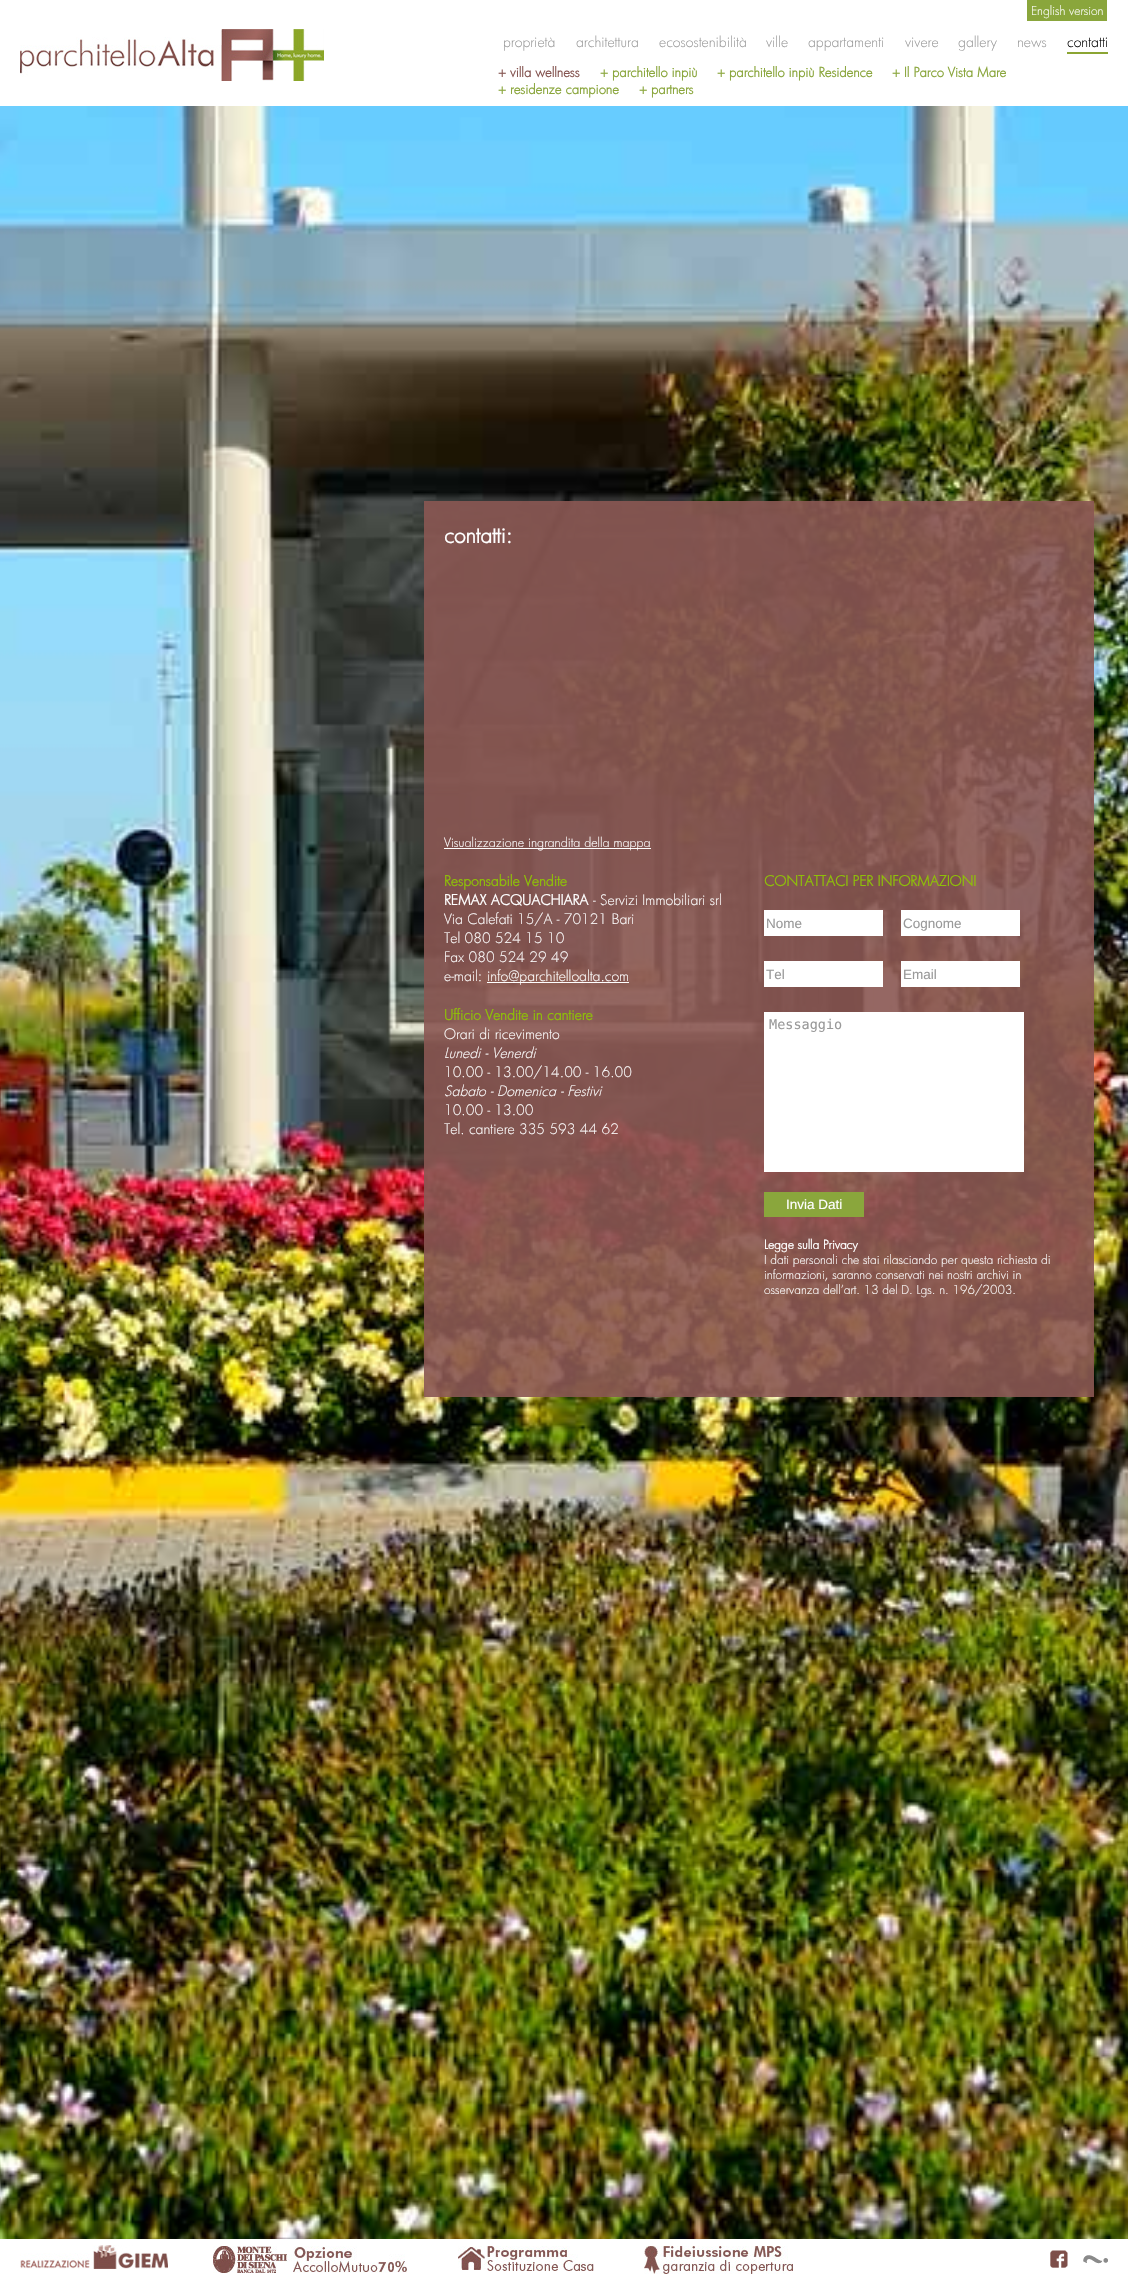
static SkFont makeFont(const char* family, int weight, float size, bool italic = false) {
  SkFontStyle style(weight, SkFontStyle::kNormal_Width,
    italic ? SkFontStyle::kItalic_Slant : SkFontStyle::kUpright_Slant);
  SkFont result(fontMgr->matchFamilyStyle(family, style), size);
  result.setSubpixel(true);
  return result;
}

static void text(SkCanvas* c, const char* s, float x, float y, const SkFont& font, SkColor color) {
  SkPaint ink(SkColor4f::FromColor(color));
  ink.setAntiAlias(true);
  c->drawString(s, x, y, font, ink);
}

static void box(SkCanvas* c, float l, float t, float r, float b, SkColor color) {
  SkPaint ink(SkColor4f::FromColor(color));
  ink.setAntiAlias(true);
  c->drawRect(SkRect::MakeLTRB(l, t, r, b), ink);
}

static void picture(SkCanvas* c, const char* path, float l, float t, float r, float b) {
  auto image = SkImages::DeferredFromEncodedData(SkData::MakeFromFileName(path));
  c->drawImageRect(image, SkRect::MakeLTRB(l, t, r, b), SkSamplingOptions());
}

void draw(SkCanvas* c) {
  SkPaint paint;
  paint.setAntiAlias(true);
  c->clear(0xffffffff);
  box(c, 1027, 0, 1107, 21, 0xff8aa63c);
  SkFont face1 = makeFont("Futura", 300, 12);
  text(c, "English version", 1031, 15, face1, 0xffffffff);
  picture(c, "img_01.png", 20, 29, 324, 81);
  SkFont face2 = makeFont("Futura", 300, 14);
  text(c, "proprietà", 503, 47, face2, 0xff999999);
  text(c, "architettura", 576, 47, face2, 0xff999999);
  text(c, "ecosostenibilità", 659, 47, face2, 0xff999999);
  text(c, "ville", 766, 47, face2, 0xff999999);
  text(c, "appartamenti", 808, 47, face2, 0xff999999);
  text(c, "vivere", 905, 47, face2, 0xff999999);
  text(c, "gallery", 958, 47, face2, 0xff999999);
  text(c, "news", 1017, 47, face2, 0xff999999);
  box(c, 1067, 52, 1108, 54, 0xff8ba533);
  text(c, "contatti", 1067, 47, face2, 0xff000000);
  SkFont face3 = makeFont("Futura", 700, 13);
  text(c, "+ villa wellness", 498, 77, face3, 0xff855551);
  text(c, "+ parchitello inpiù", 600, 77, face3, 0xff8aa63c);
  text(c, "+ parchitello inpiù Residence", 717, 77, face3, 0xff8aa63c);
  text(c, "+ Il Parco Vista Mare", 892, 77, face3, 0xff8aa63c);
  text(c, "+ residenze campione", 498, 94, face3, 0xff8aa63c);
  text(c, "+ partners", 639, 94, face3, 0xff8aa63c);
  picture(c, "img_02.png", 0, 106, 1128, 2239);
  box(c, 424, 501, 1094, 1397, 0xe6895652);
  SkFont face4 = makeFont("Futura", 700, 21);
  text(c, "contatti:", 444, 543, face4, 0xffffffff);
  box(c, 444, 848, 651, 849, 0xffffffff);
  SkFont face5 = makeFont("Futura", 300, 12.5f);
  text(c, "Visualizzazione ingrandita della mappa", 444, 847, face5, 0xffffffff);
  SkFont face6 = makeFont("Futura", 700, 14);
  text(c, "Responsabile Vendite", 444, 886, face6, 0xff8ebe09);
  text(c, "REMAX ACQUACHIARA", 444, 905, face6, 0xffffffff);
  text(c, "- Servizi Immobiliari srl", 593, 905, face2, 0xffffffff);
  text(c, "Via Calefati 15/A - 70121 Bari", 444, 924, face2, 0xffffffff);
  text(c, "Tel 080 524 15 10", 444, 943, face2, 0xffffffff);
  text(c, "Fax 080 524 29 49", 444, 962, face2, 0xffffffff);
  text(c, "e-mail:", 444, 981, face2, 0xffffffff);
  box(c, 487, 982, 629, 983, 0xffffffff);
  text(c, "info@parchitelloalta.com", 487, 981, face2, 0xffffffff);
  text(c, "Ufficio Vendite in cantiere", 444, 1020, face6, 0xff8ebe09);
  text(c, "Orari di ricevimento", 444, 1039, face2, 0xffffffff);
  SkFont face7 = makeFont("Futura", 300, 14, true);
  text(c, "Lunedi - Venerdi", 444, 1058, face7, 0xffffffff);
  text(c, "10.00 - 13.00/14.00 - 16.00", 444, 1077, face2, 0xffffffff);
  text(c, "Sabato - Domenica - Festivi", 444, 1096, face7, 0xffffffff);
  text(c, "10.00 - 13.00", 444, 1115, face2, 0xffffffff);
  text(c, "Tel. cantiere 335 593 44 62", 444, 1134, face2, 0xffffffff);
  text(c, "CONTATTACI PER INFORMAZIONI", 764, 886, face6, 0xff8ebe09);
  box(c, 764, 910, 883, 936, 0xffffffff);
  SkFont face8 = makeFont("Liberation Sans", 400, 13.5f);
  text(c, "Nome", 766, 928, face8, 0xff999999);
  box(c, 901, 910, 1020, 936, 0xffffffff);
  text(c, "Cognome", 903, 928, face8, 0xff999999);
  box(c, 764, 961, 883, 987, 0xffffffff);
  text(c, "Tel", 766, 979, face8, 0xff999999);
  box(c, 901, 961, 1020, 987, 0xffffffff);
  text(c, "Email", 903, 979, face8, 0xff999999);
  box(c, 764, 1012, 1024, 1172, 0xffffffff);
  SkFont face9 = makeFont("DejaVu Sans Mono", 400, 13.5f);
  text(c, "Messaggio", 769, 1029, face9, 0xff999999);
  box(c, 764, 1192, 864, 1217, 0xff8aa63c);
  text(c, "Invia Dati", 786, 1209, face8, 0xffffffff);
  SkFont face10 = makeFont("Futura", 700, 12);
  text(c, "Legge sulla Privacy", 764, 1249, face10, 0xffffffff);
  text(c, "I dati personali che stai rilasciando per questa richiesta di", 764, 1264, face1, 0xffffffff);
  text(c, "informazioni, saranno conservati nei nostri archivi in", 764, 1279, face1, 0xffffffff);
  text(c, "osservanza dell’art. 13 del D. Lgs. n. 196/2003.", 764, 1294, face1, 0xffffffff);
  picture(c, "img_03.png", 20, 2245, 168, 2269);
  picture(c, "img_04.png", 213, 2246, 407, 2273);
  picture(c, "img_05.png", 458, 2246, 594, 2271);
  picture(c, "img_06.png", 644, 2246, 793, 2274);
  picture(c, "img_07.png", 1050, 2250, 1068, 2268);
  picture(c, "img_08.png", 1083, 2255, 1108, 2264);
}
